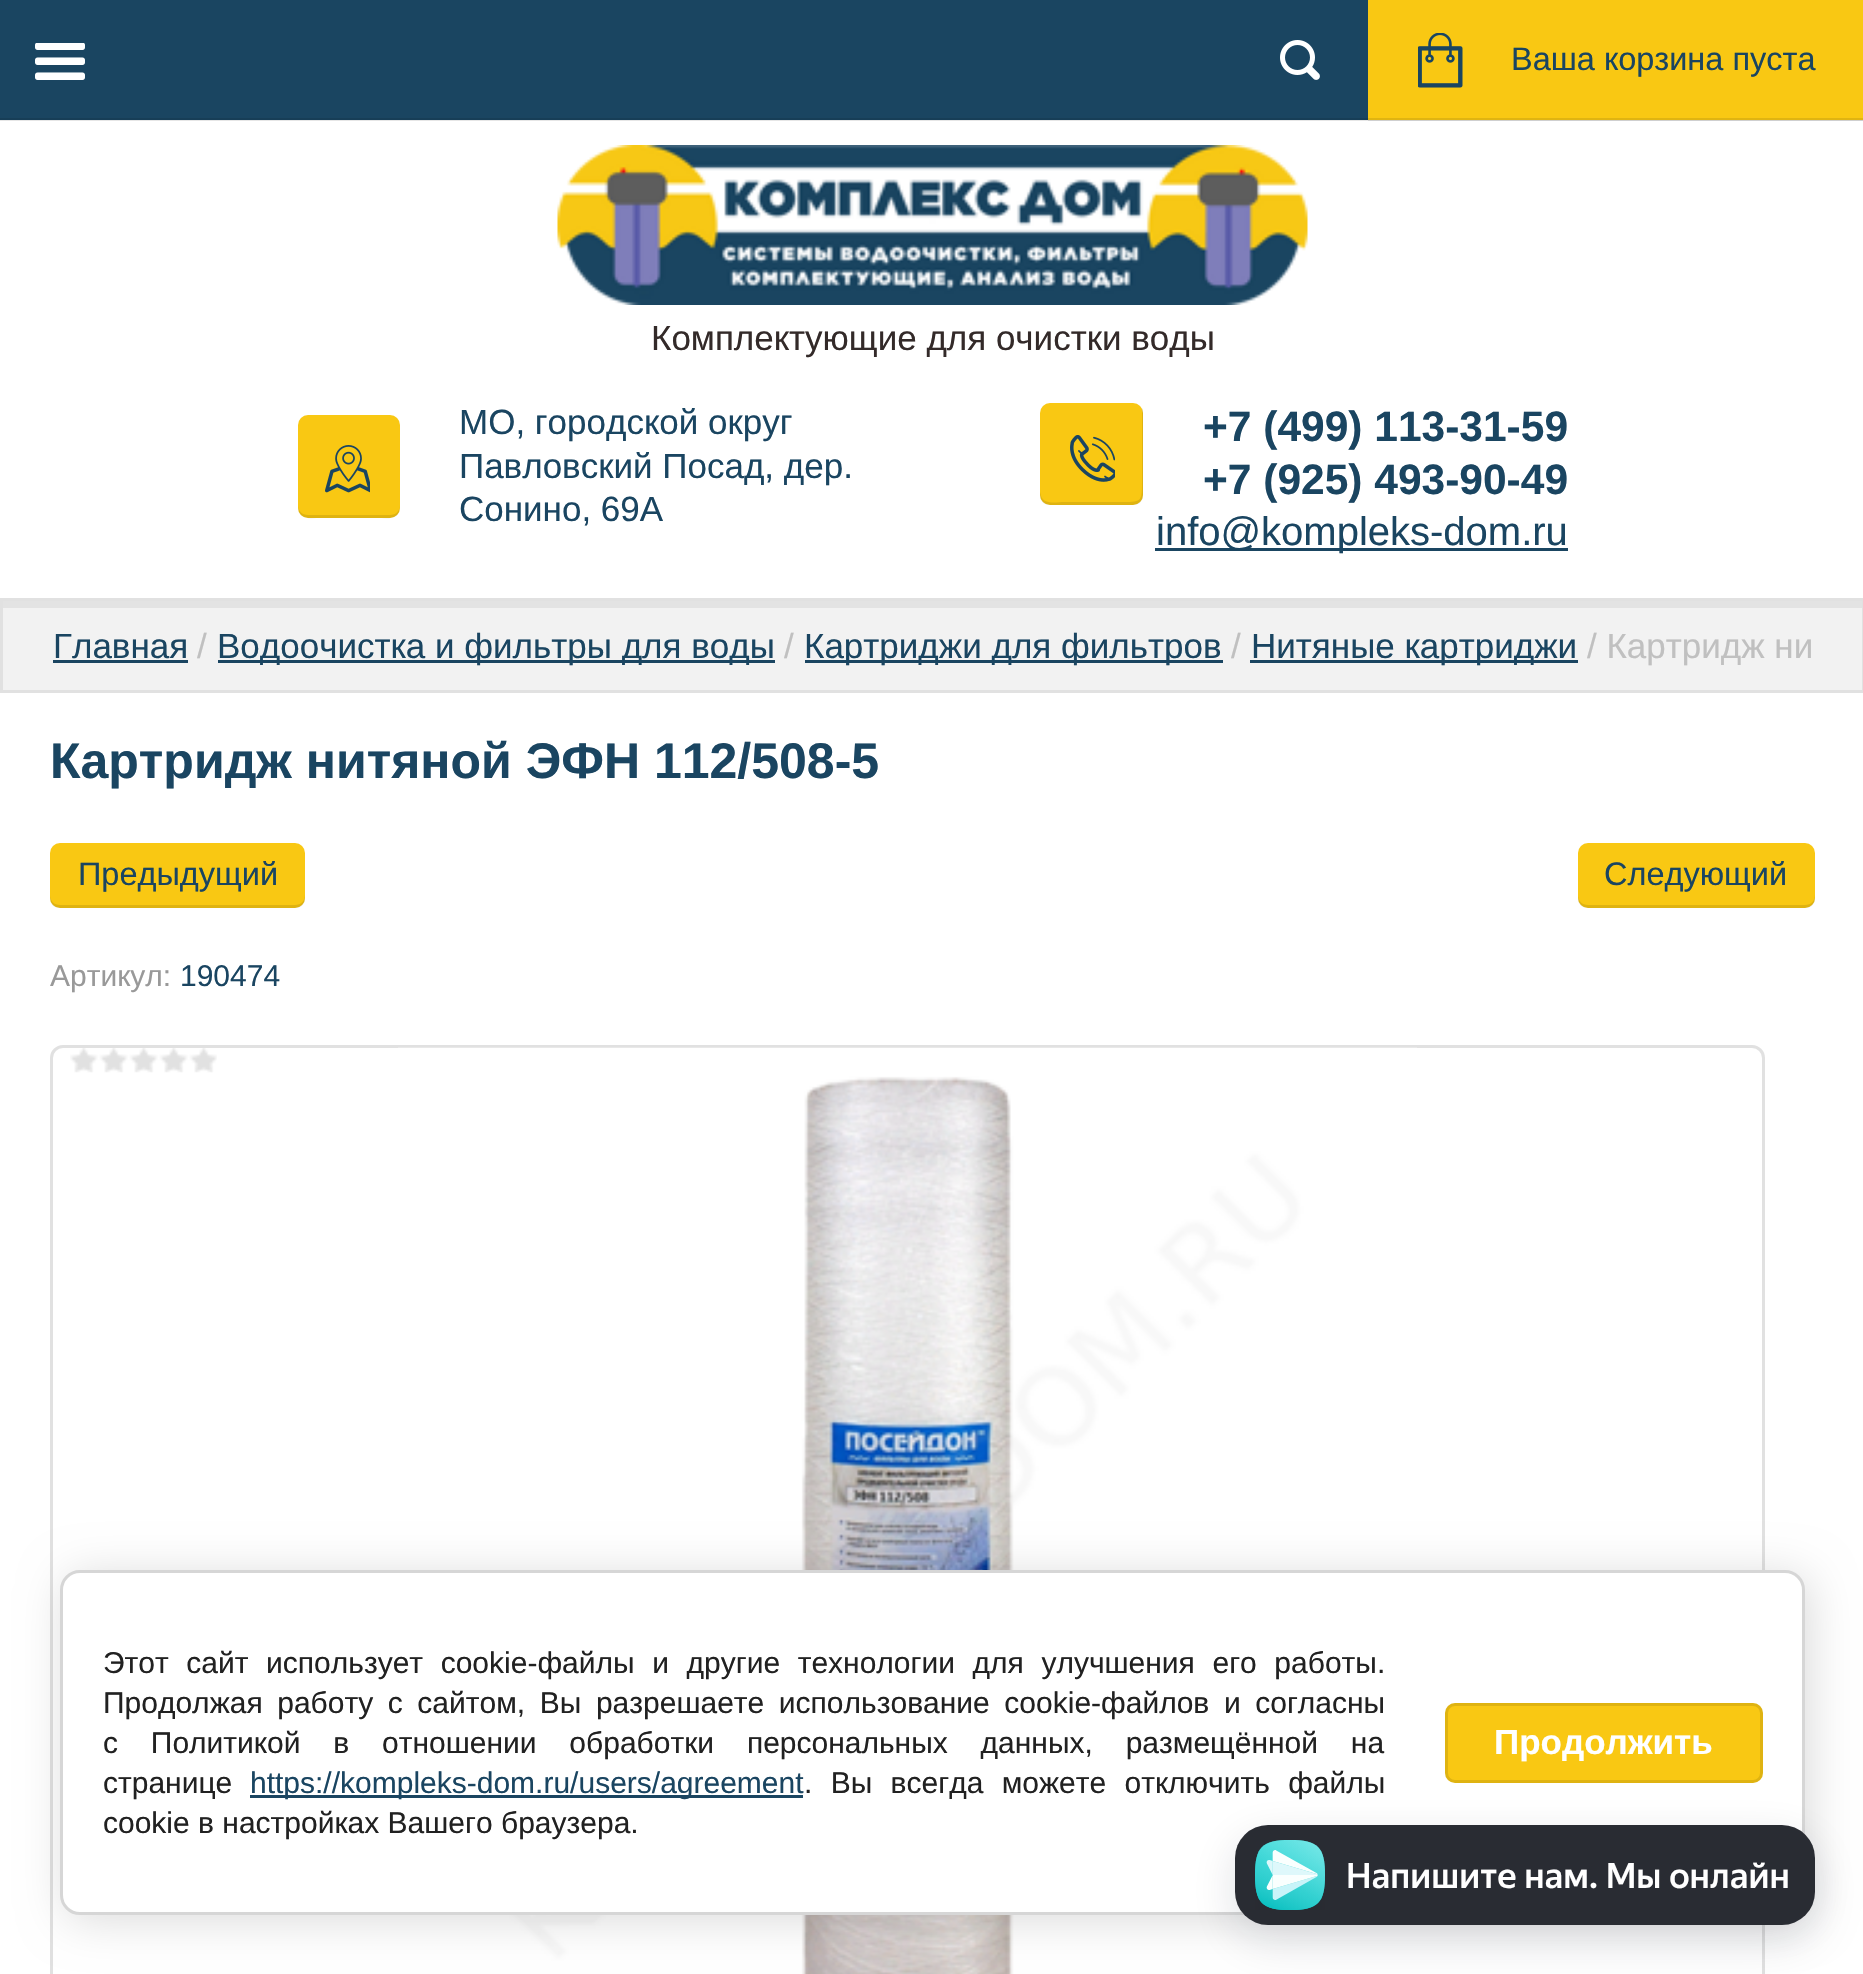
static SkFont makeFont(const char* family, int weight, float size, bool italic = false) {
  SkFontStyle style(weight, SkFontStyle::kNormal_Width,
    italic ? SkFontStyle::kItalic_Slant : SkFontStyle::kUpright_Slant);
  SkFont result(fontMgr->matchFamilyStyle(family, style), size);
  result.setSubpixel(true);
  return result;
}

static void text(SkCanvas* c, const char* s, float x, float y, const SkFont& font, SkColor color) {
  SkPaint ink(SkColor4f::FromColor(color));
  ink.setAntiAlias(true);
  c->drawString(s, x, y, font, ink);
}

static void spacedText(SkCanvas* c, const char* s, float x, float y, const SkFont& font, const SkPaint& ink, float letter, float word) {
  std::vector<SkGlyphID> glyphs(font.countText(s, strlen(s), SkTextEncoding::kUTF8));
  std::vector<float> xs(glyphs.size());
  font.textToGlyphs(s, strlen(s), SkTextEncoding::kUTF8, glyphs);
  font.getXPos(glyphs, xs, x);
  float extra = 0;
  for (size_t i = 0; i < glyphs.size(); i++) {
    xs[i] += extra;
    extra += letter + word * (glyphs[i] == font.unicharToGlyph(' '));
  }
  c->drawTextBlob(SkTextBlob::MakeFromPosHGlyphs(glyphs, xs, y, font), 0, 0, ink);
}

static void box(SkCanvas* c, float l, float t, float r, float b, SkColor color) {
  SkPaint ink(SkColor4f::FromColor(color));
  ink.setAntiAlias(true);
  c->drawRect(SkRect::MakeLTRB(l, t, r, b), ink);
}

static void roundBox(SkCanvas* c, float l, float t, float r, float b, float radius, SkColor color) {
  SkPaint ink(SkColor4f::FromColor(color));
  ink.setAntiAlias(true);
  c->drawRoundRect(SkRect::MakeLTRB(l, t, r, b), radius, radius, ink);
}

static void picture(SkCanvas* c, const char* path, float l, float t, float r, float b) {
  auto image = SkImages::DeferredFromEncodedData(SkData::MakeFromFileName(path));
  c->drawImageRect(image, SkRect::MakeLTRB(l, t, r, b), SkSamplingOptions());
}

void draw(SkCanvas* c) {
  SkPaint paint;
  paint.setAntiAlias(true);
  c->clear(0xffffffff);
  box(c, 0, 120, 1368, 121, 0xffe6e6e6);
  box(c, 1368, 120, 1863, 121, 0xffcfcfcf);
  box(c, 0, 0, 1368, 118, 0xff1a4561);
  picture(c, "img_01.png", 35, 43, 85, 80);
  box(c, 0, 118, 1368, 120, 0xff173e57);
  picture(c, "img_02.png", 1280, 40, 1320, 80);
  box(c, 1368, 0, 1863, 118, 0xfff9c813);
  box(c, 1368, 118, 1863, 120, 0xffe0b411);
  picture(c, "img_03.png", 1418, 33, 1463, 88);
  SkFont face1 = makeFont("Liberation Sans", 400, 32.5f);
  text(c, "Ваша корзина пуста", 1511, 70, face1, 0xff1a4561);
  picture(c, "img_04.png", 557, 145, 1308, 305);
  SkFont face2 = makeFont("Liberation Sans", 400, 35);
  text(c, "Комплектующие для очистки воды", 651, 350, face2, 0xff332a29);
  roundBox(c, 298, 415, 400, 518, 10, 0xfff9c813);
  paint.setColor(0x1a000000);
  c->drawPath(SkPathBuilder().moveTo(298, 505).cubicTo(298, 521, 309, 518, 322, 518).lineTo(376, 518).cubicTo(389, 518, 400, 521, 400, 505).cubicTo(400, 511, 396, 515, 390, 515).lineTo(308, 515).cubicTo(302, 515, 298, 511, 298, 505).close().detach(), paint);
  picture(c, "img_05.png", 325, 445, 370, 493);
  text(c, "МО, городской округ", 459, 434, face2, 0xff1a4561);
  text(c, "Павловский Посад, дер.", 459, 478, face2, 0xff1a4561);
  text(c, "Сонино, 69А", 459, 521, face2, 0xff1a4561);
  roundBox(c, 1040, 403, 1143, 505, 10, 0xfff9c813);
  c->drawPath(SkPathBuilder().moveTo(1040, 492).lineTo(1040, 495).cubicTo(1040, 501, 1044, 505, 1050, 505).lineTo(1133, 505).cubicTo(1139, 505, 1143, 501, 1143, 495).lineTo(1143, 413).cubicTo(1143, 411, 1143, 410, 1142, 408).lineTo(1142, 478).cubicTo(1142, 503, 1143, 502, 1118, 502).lineTo(1064, 502).cubicTo(1057, 502, 1044, 505, 1041, 496).close().detach(), paint);
  picture(c, "img_06.png", 1070, 435, 1115, 482);
  SkFont face3 = makeFont("Liberation Sans", 700, 42.5f);
  text(c, "+7 (499) 113-31-59", 1203, 441, face3, 0xff1a4561);
  text(c, "+7 (925) 493-90-49", 1203, 494, face3, 0xff1a4561);
  box(c, 1155, 548, 1568, 551, 0xff1a4561);
  SkFont face4 = makeFont("Liberation Sans", 400, 40);
  text(c, "info@kompleks-dom.ru", 1156, 545, face4, 0xff1a4561);
  box(c, 3, 608, 1862, 690, 0xfff2f2f2);
  box(c, 3, 601, 1863, 608, 0xffe3e3e3);
  paint.setStyle(SkPaint::kStroke_Style);
  paint.setStrokeWidth(3);
  paint.setColor(0xffe1e1e1);
  c->drawRect(SkRect::MakeLTRB(1.5f, 599.5f, 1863.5f, 691.5f), paint);
  text(c, "Главная", 53, 658, face2, 0xff1a4561);
  box(c, 53, 660, 188, 663, 0xff1a4561);
  text(c, "/", 197, 658, face2, 0xffc0c0c0);
  box(c, 218, 660, 775, 663, 0xff1a4561);
  text(c, "Водоочистка и фильтры для воды", 217, 658, face2, 0xff1a4561);
  text(c, "/", 784, 658, face2, 0xffc0c0c0);
  box(c, 805, 660, 1223, 663, 0xff1a4561);
  text(c, "Картриджи для фильтров", 804, 658, face2, 0xff1a4561);
  text(c, "/", 1231, 658, face2, 0xffc0c0c0);
  box(c, 1250, 660, 1578, 663, 0xff1a4561);
  text(c, "Нитяные картриджи", 1251, 658, face2, 0xff1a4561);
  text(c, "/ Картридж ни", 1587, 658, face2, 0xffc0c0c0);
  SkFont face5 = makeFont("Liberation Sans", 700, 50);
  text(c, "Картридж нитяной ЭФН 112/508-5", 50, 778, face5, 0xff1a4561);
  roundBox(c, 50, 843, 305, 908, 10, 0xfff9c813);
  paint.setStyle(SkPaint::kFill_Style);
  paint.setColor(0x1a000000);
  c->drawPath(SkPathBuilder().moveTo(50, 895).lineTo(50, 898).cubicTo(50, 904, 54, 908, 60, 908).lineTo(295, 908).cubicTo(301, 908, 305, 904, 305, 898).lineTo(305, 895).cubicTo(305, 901, 301, 905, 295, 905).lineTo(60, 905).cubicTo(54, 905, 50, 901, 50, 895).close().detach(), paint);
  text(c, "Предыдущий", 78, 885, face1, 0xff1a4561);
  roundBox(c, 1578, 843, 1815, 908, 10, 0xfff9c813);
  c->drawPath(SkPathBuilder().moveTo(1578, 895).lineTo(1578, 898).cubicTo(1578, 904, 1582, 908, 1588, 908).lineTo(1805, 908).cubicTo(1811, 908, 1815, 904, 1815, 898).lineTo(1815, 895).cubicTo(1815, 901, 1811, 905, 1805, 905).lineTo(1588, 905).cubicTo(1582, 905, 1578, 901, 1578, 895).close().detach(), paint);
  text(c, "Следующий", 1604, 885, face1, 0xff1a4561);
  SkFont face6 = makeFont("Liberation Sans", 400, 30);
  text(c, "Артикул:", 50, 986, face6, 0xff999999);
  text(c, "190474", 180, 986, face6, 0xff1a4561);
  paint.setStyle(SkPaint::kStroke_Style);
  paint.setColor(0xffe1e1e1);
  c->drawRoundRect(SkRect::MakeLTRB(51.5f, 1046.5f, 1763.5f, 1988.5f), 11.5f, 11.5f, paint);
  picture(c, "img_07.png", 70, 1048, 217, 1073);
  picture(c, "img_08.png", 398, 1047, 1417, 1974);
  paint.setStyle(SkPaint::kFill_Style);
  paint.setColor(0x24000000);
  paint.setMaskFilter(SkMaskFilter::MakeBlur(kNormal_SkBlurStyle, 22.5f));
  c->drawRoundRect(SkRect::MakeLTRB(65, 1575, 1810, 1920), 20, 20, paint);
  paint.setMaskFilter(nullptr);
  paint.setColor(0xffffffff);
  c->drawRoundRect(SkRect::MakeLTRB(61.5f, 1571.5f, 1803.5f, 1913.5f), 18.5f, 18.5f, paint);
  paint.setStyle(SkPaint::kStroke_Style);
  paint.setColor(0xffd6d6d6);
  c->drawRoundRect(SkRect::MakeLTRB(61.5f, 1571.5f, 1803.5f, 1913.5f), 18.5f, 18.5f, paint);
  paint.setStyle(SkPaint::kFill_Style);
  paint.setColor(0xff212121);
  spacedText(c, "Этот сайт использует cookie-файлы и другие технологии для улучшения его работы.", 103, 1673, face6, paint, 0, 9.25f);
  spacedText(c, "Продолжая работу с сайтом, Вы разрешаете использование cookie-файлов и согласны", 103, 1713, face6, paint, 0, 6.25f);
  spacedText(c, "с Политикой в отношении обработки персональных данных, размещённой на", 103, 1753, face6, paint, 0, 24.5f);
  text(c, "странице", 103, 1793, face6, 0xff212121);
  box(c, 250, 1795, 803, 1798, 0xff1a4561);
  text(c, "https://kompleks-dom.ru/users/agreement", 250, 1793, face6, 0xff1a4561);
  spacedText(c, ". Вы всегда можете отключить файлы", 804, 1793, face6, paint, 0, 10);
  text(c, "cookie в настройках Вашего браузера.", 103, 1833, face6, 0xff212121);
  roundBox(c, 1445, 1703, 1763, 1783, 10, 0xfff9c813);
  paint.setStyle(SkPaint::kStroke_Style);
  paint.setColor(0x1a000000);
  c->drawRoundRect(SkRect::MakeLTRB(1446.5f, 1704.5f, 1761.5f, 1781.5f), 8.5f, 8.5f, paint);
  SkFont face7 = makeFont("Liberation Sans", 700, 35);
  text(c, "Продолжить", 1494, 1754, face7, 0xffffffff);
  paint.setStyle(SkPaint::kFill_Style);
  paint.setColor(0x210e152f);
  paint.setMaskFilter(SkMaskFilter::MakeBlur(kNormal_SkBlurStyle, 22.5f));
  c->drawRoundRect(SkRect::MakeLTRB(1235, 1840, 1815, 1940), 33, 33, paint);
  paint.setMaskFilter(nullptr);
  roundBox(c, 1235, 1825, 1815, 1925, 33, 0xff292c33);
  picture(c, "img_09.png", 1255, 1840, 1325, 1910);
  SkFont face8 = makeFont("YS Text", 500, 35);
  text(c, "Напишите нам. Мы онлайн", 1346, 1888, face8, 0xffffffff);
}
